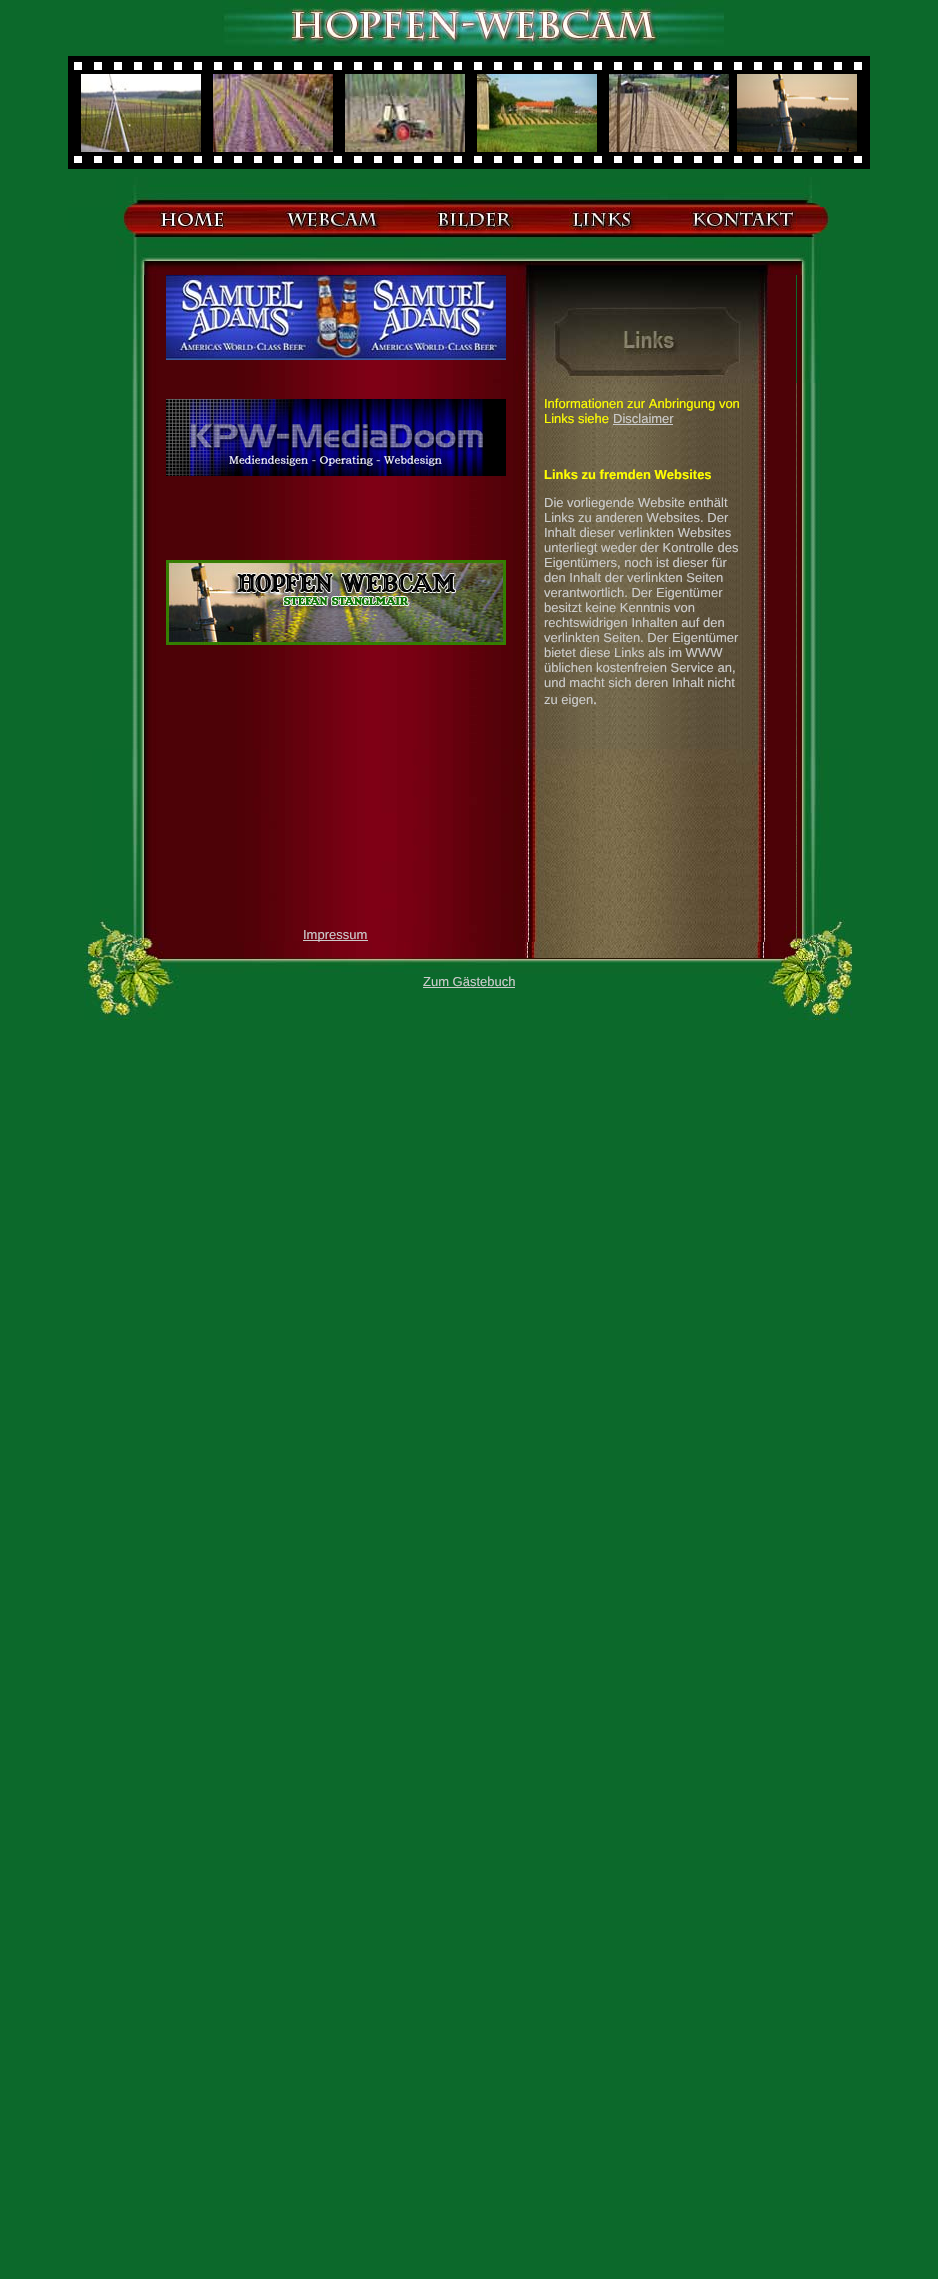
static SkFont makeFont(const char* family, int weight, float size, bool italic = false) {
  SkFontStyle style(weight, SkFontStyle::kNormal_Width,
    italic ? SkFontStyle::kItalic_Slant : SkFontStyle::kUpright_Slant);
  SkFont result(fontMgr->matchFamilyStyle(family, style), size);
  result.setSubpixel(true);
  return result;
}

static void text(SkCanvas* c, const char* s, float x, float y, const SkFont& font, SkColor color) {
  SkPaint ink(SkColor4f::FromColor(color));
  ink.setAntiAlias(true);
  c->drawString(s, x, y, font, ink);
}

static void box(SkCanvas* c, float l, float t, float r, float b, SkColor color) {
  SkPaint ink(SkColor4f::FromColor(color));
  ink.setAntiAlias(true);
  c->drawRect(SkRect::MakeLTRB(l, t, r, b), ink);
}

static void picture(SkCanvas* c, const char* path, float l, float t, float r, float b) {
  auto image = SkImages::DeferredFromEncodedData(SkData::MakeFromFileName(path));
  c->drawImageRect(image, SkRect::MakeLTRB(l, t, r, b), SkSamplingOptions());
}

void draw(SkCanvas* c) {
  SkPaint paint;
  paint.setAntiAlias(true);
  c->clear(0xff0c692b);
  picture(c, "img_01.png", 222, 0, 724, 49);
  picture(c, "img_02.png", 68, 56, 870, 169);
  picture(c, "img_03.png", 81, 74, 201, 152);
  picture(c, "img_04.png", 213, 74, 333, 152);
  picture(c, "img_05.png", 345, 74, 465, 152);
  picture(c, "img_06.png", 477, 74, 597, 152);
  picture(c, "img_07.png", 609, 74, 729, 152);
  picture(c, "img_08.png", 737, 74, 857, 152);
  picture(c, "img_09.png", 116, 177, 821, 207);
  picture(c, "img_10.png", 796, 207, 797, 230);
  picture(c, "img_11.png", 68, 207, 157, 230);
  picture(c, "img_12.png", 157, 207, 227, 230);
  picture(c, "img_13.png", 227, 207, 284, 230);
  picture(c, "img_14.png", 284, 207, 380, 230);
  picture(c, "img_15.png", 380, 207, 435, 230);
  picture(c, "img_16.png", 435, 207, 513, 230);
  picture(c, "img_17.png", 513, 207, 569, 230);
  picture(c, "img_18.png", 569, 207, 633, 230);
  picture(c, "img_17.png", 633, 207, 689, 230);
  picture(c, "img_19.png", 689, 207, 796, 230);
  picture(c, "img_20.png", 797, 207, 830, 230);
  picture(c, "img_21.png", 116, 230, 823, 275);
  picture(c, "img_22.png", 132, 275, 157, 383);
  picture(c, "img_23.png", 157, 275, 514, 383);
  picture(c, "img_24.png", 166, 275, 506, 360);
  picture(c, "img_25.png", 514, 275, 544, 383);
  picture(c, "img_26.png", 544, 275, 796, 383);
  picture(c, "img_27.png", 797, 275, 821, 383);
  picture(c, "img_28.png", 132, 383, 157, 749);
  picture(c, "img_29.png", 157, 383, 514, 749);
  picture(c, "img_30.png", 166, 399, 506, 476);
  picture(c, "img_31.png", 166, 560, 506, 645);
  picture(c, "img_32.png", 514, 383, 544, 749);
  picture(c, "img_33.png", 544, 383, 797, 749);
  SkFont face1 = makeFont("Liberation Sans", 400, 13);
  text(c, "Informationen zur Anbringung von", 544, 408, face1, 0xffffff00);
  text(c, "Links siehe", 544, 423, face1, 0xffffff00);
  text(c, "Disclaimer", 613, 423, face1, 0xffcccccc);
  box(c, 613, 424, 673, 425, 0xffcccccc);
  SkFont face2 = makeFont("Liberation Sans", 700, 13);
  text(c, "Links zu fremden Websites", 544, 479, face2, 0xffffff00);
  text(c, "Die vorliegende Website enthält", 544, 507, face1, 0xffcccccc);
  text(c, "Links zu anderen Websites. Der", 544, 522, face1, 0xffcccccc);
  text(c, "Inhalt dieser verlinkten Websites", 544, 537, face1, 0xffcccccc);
  text(c, "unterliegt weder der Kontrolle des", 544, 552, face1, 0xffcccccc);
  text(c, "Eigentümers, noch ist dieser für", 544, 567, face1, 0xffcccccc);
  text(c, "den Inhalt der verlinkten Seiten", 544, 582, face1, 0xffcccccc);
  text(c, "verantwortlich. Der Eigentümer", 544, 597, face1, 0xffcccccc);
  text(c, "besitzt keine Kenntnis von", 544, 612, face1, 0xffcccccc);
  text(c, "rechtswidrigen Inhalten auf den", 544, 627, face1, 0xffcccccc);
  text(c, "verlinkten Seiten. Der Eigentümer", 544, 642, face1, 0xffcccccc);
  text(c, "bietet diese Links als im WWW", 544, 657, face1, 0xffcccccc);
  text(c, "üblichen kostenfreien Service an,", 544, 672, face1, 0xffcccccc);
  text(c, "und macht sich deren Inhalt nicht", 544, 687, face1, 0xffcccccc);
  text(c, "zu eigen", 544, 704, face1, 0xffcccccc);
  SkFont face3 = makeFont("Liberation Serif", 400, 16);
  text(c, ".", 593, 704, face3, 0xffcccccc);
  picture(c, "img_34.png", 797, 383, 822, 749);
  picture(c, "img_35.png", 92, 749, 157, 942);
  picture(c, "img_36.png", 157, 749, 514, 942);
  box(c, 303, 940, 368, 941, 0xffcccccc);
  text(c, "Impressum", 303, 939, face1, 0xffcccccc);
  picture(c, "img_37.png", 514, 749, 544, 942);
  picture(c, "img_38.png", 544, 749, 797, 942);
  picture(c, "img_39.png", 797, 749, 849, 942);
  picture(c, "img_40.png", 84, 942, 853, 1020);
  text(c, "Zum Gästebuch", 423, 986, face1, 0xffcccccc);
  box(c, 423, 987, 515, 988, 0xffcccccc);
}
